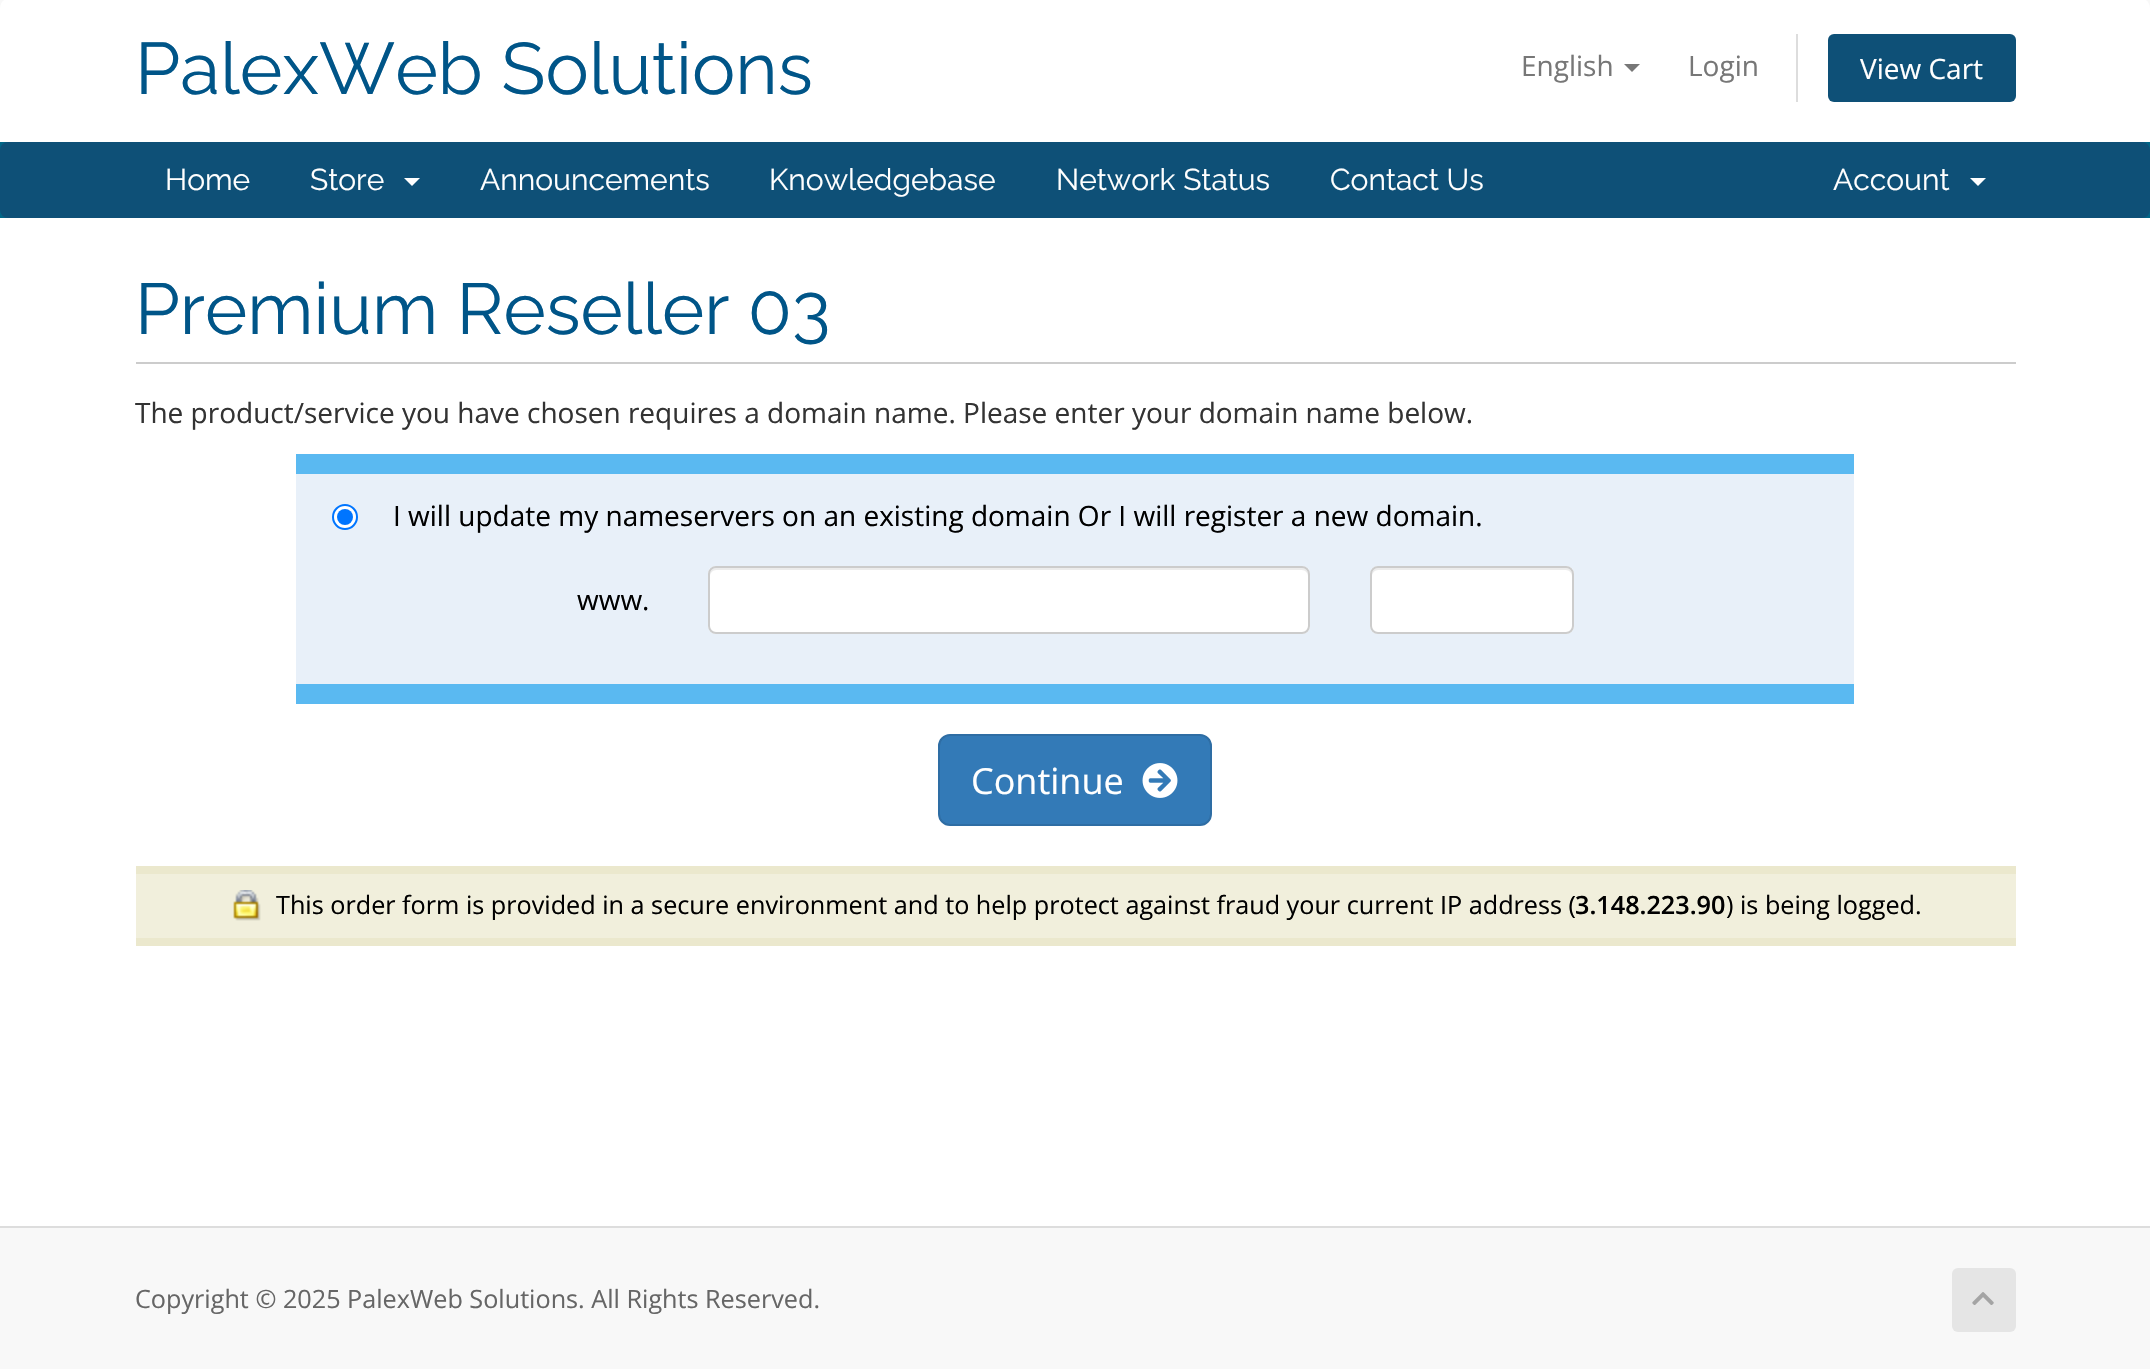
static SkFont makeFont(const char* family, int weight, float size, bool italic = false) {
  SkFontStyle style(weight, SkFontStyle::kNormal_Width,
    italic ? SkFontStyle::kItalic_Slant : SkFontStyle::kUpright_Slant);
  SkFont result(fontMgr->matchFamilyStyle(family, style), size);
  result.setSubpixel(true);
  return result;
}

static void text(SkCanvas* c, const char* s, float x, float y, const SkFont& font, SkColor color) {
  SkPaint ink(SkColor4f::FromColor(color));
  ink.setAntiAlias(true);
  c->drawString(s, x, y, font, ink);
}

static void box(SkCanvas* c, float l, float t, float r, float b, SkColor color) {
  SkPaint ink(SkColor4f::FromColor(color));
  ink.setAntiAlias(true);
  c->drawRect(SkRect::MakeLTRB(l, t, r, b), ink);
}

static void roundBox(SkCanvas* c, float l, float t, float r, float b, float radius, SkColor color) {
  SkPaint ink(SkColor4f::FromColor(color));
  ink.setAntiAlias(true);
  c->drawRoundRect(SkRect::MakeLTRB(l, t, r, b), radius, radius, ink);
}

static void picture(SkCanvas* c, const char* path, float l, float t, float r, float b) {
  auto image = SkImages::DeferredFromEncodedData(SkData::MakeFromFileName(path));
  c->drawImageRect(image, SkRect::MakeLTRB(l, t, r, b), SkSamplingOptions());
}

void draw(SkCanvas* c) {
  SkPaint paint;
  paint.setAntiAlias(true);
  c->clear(0xfff8f8f8);
  paint.setColor(0xffffffff);
  c->drawPath(SkPathBuilder().moveTo(10, -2).lineTo(2140, -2).cubicTo(2145.5f, -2, 2150, 2.5f, 2150, 8).lineTo(2150, 142).lineTo(0, 142).lineTo(0, 8).cubicTo(0, 2.5f, 4.5f, -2, 10, -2).close().detach(), paint);
  SkFont face1 = makeFont("Raleway", 400, 72.75f);
  text(c, "PalexWeb Solutions", 135, 94, face1, 0xff005588);
  SkFont face2 = makeFont("Open Sans", 400, 28);
  text(c, "English", 1521, 76, face2, 0xff777777);
  paint.setColor(0xff777777);
  c->drawPath(SkPathBuilder().moveTo(1624, 64).lineTo(1640, 64).lineTo(1632, 72).close().detach(), paint);
  text(c, "Login", 1688, 76, face2, 0xff777777);
  box(c, 1796, 34, 1798, 102, 0xffdddddd);
  roundBox(c, 1828, 34, 2016, 102, 6, 0xff0e5077);
  text(c, "View Cart", 1860, 79, face2, 0xffffffff);
  box(c, 0, 142, 2150, 218, 0xff006687);
  roundBox(c, 0, 142, 2150, 218, 8, 0xff0e5077);
  SkFont face3 = makeFont("Raleway", 400, 30);
  text(c, "Home", 165, 190, face3, 0xffffffff);
  text(c, "Store", 310, 190, face3, 0xffffffff);
  paint.setColor(0xffffffff);
  c->drawPath(SkPathBuilder().moveTo(404, 178).lineTo(420, 178).lineTo(412, 186).close().detach(), paint);
  text(c, "Announcements", 480, 190, face3, 0xffffffff);
  text(c, "Knowledgebase", 769, 190, face3, 0xffffffff);
  text(c, "Network Status", 1056, 190, face3, 0xffffffff);
  text(c, "Contact Us", 1330, 190, face3, 0xffffffff);
  text(c, "Account", 1833, 190, face3, 0xffffffff);
  c->drawPath(SkPathBuilder().moveTo(1970, 178).lineTo(1986, 178).lineTo(1978, 186).close().detach(), paint);
  box(c, 0, 218, 2150, 1226, 0xffffffff);
  box(c, 136, 362, 2016, 364, 0xffcccccc);
  SkFont face4 = makeFont("Raleway", 400, 72);
  text(c, "Premium Reseller 03", 135, 334, face4, 0xff005588);
  text(c, "The product/service you have chosen requires a domain name. Please enter your domain name below.", 135, 423, face2, 0xff333333);
  box(c, 296, 454, 1854, 474, 0xff5ab9f1);
  box(c, 296, 684, 1854, 704, 0xff5ab9f1);
  box(c, 296, 474, 1854, 684, 0xffe8f0f9);
  c->drawCircle(345, 517, 12, paint);
  paint.setStyle(SkPaint::kStroke_Style);
  paint.setStrokeWidth(2);
  paint.setColor(0xff0075ff);
  c->drawCircle(345, 517, 12, paint);
  paint.setStyle(SkPaint::kFill_Style);
  c->drawCircle(345, 517, 8, paint);
  text(c, "I will update my nameservers on an existing domain Or I will register a new domain.", 393, 526, face2, 0xff000000);
  text(c, "www.", 577, 610, face2, 0xff000000);
  roundBox(c, 708, 566, 1310, 634, 8, 0xffffffff);
  paint.setColor(0xffececec);
  c->drawPath(SkPathBuilder().moveTo(716, 570).lineTo(1302, 570).cubicTo(1305, 570, 1308, 573, 1308, 576).lineTo(1308, 574).cubicTo(1308, 571, 1305, 568, 1302, 568).lineTo(716, 568).cubicTo(713, 568, 710, 571, 710, 574).lineTo(710, 576).cubicTo(710, 573, 713, 570, 716, 570).close().detach(), paint);
  paint.setStyle(SkPaint::kStroke_Style);
  paint.setColor(0xffcccccc);
  c->drawRoundRect(SkRect::MakeLTRB(709, 567, 1309, 633), 7, 7, paint);
  roundBox(c, 1370, 566, 1574, 634, 8, 0xffffffff);
  paint.setStyle(SkPaint::kFill_Style);
  paint.setColor(0xffececec);
  c->drawPath(SkPathBuilder().moveTo(1378, 570).lineTo(1566, 570).cubicTo(1569, 570, 1572, 573, 1572, 576).lineTo(1572, 574).cubicTo(1572, 571, 1569, 568, 1566, 568).lineTo(1378, 568).cubicTo(1375, 568, 1372, 571, 1372, 574).lineTo(1372, 576).cubicTo(1372, 573, 1375, 570, 1378, 570).close().detach(), paint);
  paint.setStyle(SkPaint::kStroke_Style);
  paint.setColor(0xffcccccc);
  c->drawRoundRect(SkRect::MakeLTRB(1371, 567, 1573, 633), 7, 7, paint);
  paint.setStyle(SkPaint::kFill_Style);
  paint.setColor(0xff337ab7);
  c->drawRoundRect(SkRect::MakeLTRB(939, 735, 1211, 825), 11, 11, paint);
  paint.setStyle(SkPaint::kStroke_Style);
  paint.setColor(0xff2e6da4);
  c->drawRoundRect(SkRect::MakeLTRB(939, 735, 1211, 825), 11, 11, paint);
  SkFont face5 = makeFont("Open Sans", 400, 36);
  text(c, "Continue", 971, 794, face5, 0xffffffff);
  picture(c, "img_01.png", 1142, 763, 1178, 798);
  box(c, 136, 874, 2016, 938, 0xfff1efdc);
  box(c, 136, 866, 2016, 874, 0xffebe8cd);
  box(c, 136, 938, 2016, 946, 0xffebe8cd);
  picture(c, "img_02.png", 233, 890, 261, 921);
  SkFont face6 = makeFont("Open Sans", 400, 25.2f);
  text(c, "This order form is provided in a secure environment and to help protect against fraud your current IP address (", 276, 914, face6, 0xff000000);
  SkFont face7 = makeFont("Open Sans", 600, 25.2f);
  text(c, "3.148.223.90", 1575, 914, face7, 0xff000000);
  text(c, ") is being logged.", 1726, 914, face6, 0xff000000);
  box(c, 0, 1226, 2150, 1228, 0xffdddddd);
  text(c, "Copyright © 2025 PalexWeb Solutions. All Rights Reserved.", 135, 1308, face6, 0xff666666);
  roundBox(c, 1952, 1268, 2016, 1332, 6, 0xffe5e5e5);
  picture(c, "img_03.png", 1972, 1292, 1994, 1305);
}
